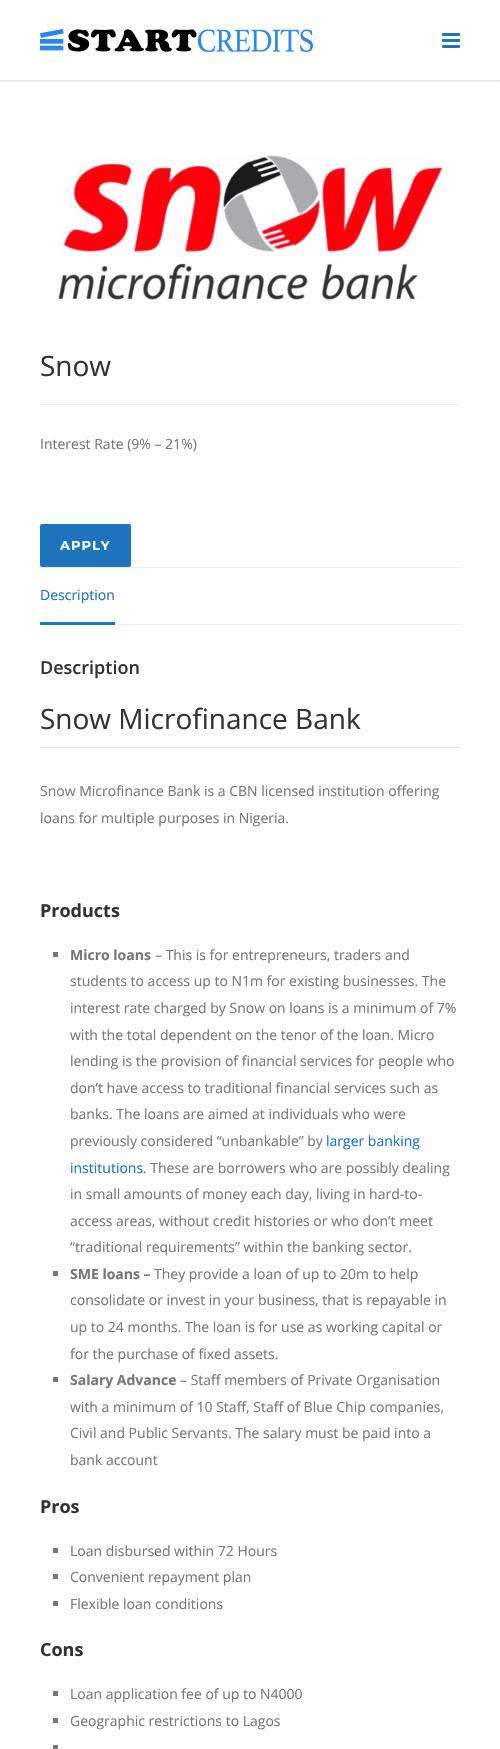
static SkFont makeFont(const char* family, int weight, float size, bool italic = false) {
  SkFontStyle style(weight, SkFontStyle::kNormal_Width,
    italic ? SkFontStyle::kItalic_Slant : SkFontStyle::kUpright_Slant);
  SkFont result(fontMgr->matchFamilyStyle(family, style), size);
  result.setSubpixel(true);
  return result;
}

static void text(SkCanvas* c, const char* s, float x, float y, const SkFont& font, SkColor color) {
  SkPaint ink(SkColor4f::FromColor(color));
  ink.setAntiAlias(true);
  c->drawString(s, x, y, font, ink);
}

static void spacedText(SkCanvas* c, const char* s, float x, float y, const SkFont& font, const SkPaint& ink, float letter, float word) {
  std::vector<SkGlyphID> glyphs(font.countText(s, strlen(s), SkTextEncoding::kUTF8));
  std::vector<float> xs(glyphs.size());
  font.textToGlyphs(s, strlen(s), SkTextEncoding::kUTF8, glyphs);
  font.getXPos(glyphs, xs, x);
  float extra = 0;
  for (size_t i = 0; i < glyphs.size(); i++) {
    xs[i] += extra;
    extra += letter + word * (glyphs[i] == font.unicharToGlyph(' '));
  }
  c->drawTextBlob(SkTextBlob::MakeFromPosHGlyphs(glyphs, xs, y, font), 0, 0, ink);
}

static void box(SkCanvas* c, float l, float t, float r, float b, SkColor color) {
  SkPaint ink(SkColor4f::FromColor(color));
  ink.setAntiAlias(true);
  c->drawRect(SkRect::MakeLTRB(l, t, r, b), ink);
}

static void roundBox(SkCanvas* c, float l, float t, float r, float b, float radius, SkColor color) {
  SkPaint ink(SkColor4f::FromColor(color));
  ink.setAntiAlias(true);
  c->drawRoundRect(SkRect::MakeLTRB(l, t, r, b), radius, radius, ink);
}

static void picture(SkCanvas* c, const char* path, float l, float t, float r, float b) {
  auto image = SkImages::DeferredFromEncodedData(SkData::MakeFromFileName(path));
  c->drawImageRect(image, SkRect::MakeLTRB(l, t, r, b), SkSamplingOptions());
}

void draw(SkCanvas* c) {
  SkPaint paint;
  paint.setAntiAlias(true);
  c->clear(0xffffffff);
  c->save();
  c->clipRect(SkRect::MakeLTRB(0, 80, 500, 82));
  paint.setColor(0x29000000);
  paint.setMaskFilter(SkMaskFilter::MakeBlur(kNormal_SkBlurStyle, 1));
  c->drawRect(SkRect::MakeLTRB(-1, -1, 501, 81), paint);
  paint.setMaskFilter(nullptr);
  c->restore();
  picture(c, "img_01.png", 40, 28, 313, 52);
  picture(c, "img_02.png", 442, 33, 460, 48);
  picture(c, "img_03.png", 57, 155, 443, 300);
  SkFont face1 = makeFont("Open Sans", 400, 28);
  text(c, "Snow", 40, 376, face1, 0xff333333);
  box(c, 40, 404, 460, 405, 0xffefefef);
  SkFont face2 = makeFont("Open Sans", 400, 14);
  text(c, "Interest Rate (9% – 21%)", 40, 449, face2, 0xff777777);
  roundBox(c, 40, 524, 131, 567, 2, 0xff1e73be);
  SkFont face3 = makeFont("Montserrat", 700, 13);
  paint.setColor(0xffffffff);
  spacedText(c, "APPLY", 60, 550, face3, paint, 1, 0);
  box(c, 40, 567, 460, 568, 0xffefefef);
  box(c, 40, 622, 115, 625, 0xff1e73be);
  text(c, "Description", 40, 600, face2, 0xff1e73be);
  box(c, 115, 624, 460, 625, 0xffefefef);
  SkFont face4 = makeFont("Open Sans", 600, 18);
  text(c, "Description", 40, 674, face4, 0xff333333);
  text(c, "Snow Microfinance Bank", 40, 729, face1, 0xff333333);
  box(c, 40, 747, 460, 748, 0xffdddddd);
  text(c, "Snow Microfinance Bank is a CBN licensed institution offering", 40, 796, face2, 0xff777777);
  text(c, "loans for multiple purposes in Nigeria.", 40, 823, face2, 0xff777777);
  SkFont face5 = makeFont("Open Sans", 700, 18);
  text(c, "Products", 40, 917, face5, 0xff333333);
  box(c, 53, 952, 58, 957, 0xff777777);
  SkFont face6 = makeFont("Open Sans", 700, 14);
  text(c, "Micro loans", 70, 960, face6, 0xff777777);
  text(c, "– This is for entrepreneurs, traders and", 155, 960, face2, 0xff777777);
  text(c, "students to access up to N1m for existing businesses. The", 70, 986, face2, 0xff777777);
  text(c, "interest rate charged by Snow on loans is a minimum of 7%", 70, 1013, face2, 0xff777777);
  text(c, "with the total dependent on the tenor of the loan. Micro", 70, 1040, face2, 0xff777777);
  text(c, "lending is the provision of financial services for people who", 70, 1066, face2, 0xff777777);
  text(c, "don’t have access to traditional financial services such as", 70, 1093, face2, 0xff777777);
  text(c, "banks. The loans are aimed at individuals who were", 70, 1119, face2, 0xff777777);
  text(c, "previously considered “unbankable” by", 70, 1146, face2, 0xff777777);
  text(c, "larger banking", 326, 1146, face2, 0xff1e73be);
  text(c, "institutions", 70, 1173, face2, 0xff1e73be);
  text(c, ". These are borrowers who are possibly dealing", 143, 1173, face2, 0xff777777);
  text(c, "in small amounts of money each day, living in hard-to-", 70, 1199, face2, 0xff777777);
  text(c, "access areas, without credit histories or who don’t meet", 70, 1226, face2, 0xff777777);
  text(c, "“traditional requirements” within the banking sector.", 70, 1252, face2, 0xff777777);
  box(c, 53, 1271, 58, 1276, 0xff777777);
  text(c, "SME loans –", 70, 1279, face6, 0xff777777);
  text(c, "They provide a loan of up to 20m to help", 154, 1279, face2, 0xff777777);
  text(c, "consolidate or invest in your business, that is repayable in", 70, 1305, face2, 0xff777777);
  text(c, "up to 24 months. The loan is for use as working capital or", 70, 1332, face2, 0xff777777);
  text(c, "for the purchase of fixed assets.", 70, 1359, face2, 0xff777777);
  box(c, 53, 1377, 58, 1382, 0xff777777);
  text(c, "Salary Advance", 70, 1385, face6, 0xff777777);
  text(c, "– Staff members of Private Organisation", 180, 1385, face2, 0xff777777);
  text(c, "with a minimum of 10 Staff, Staff of Blue Chip companies,", 70, 1412, face2, 0xff777777);
  text(c, "Civil and Public Servants. The salary must be paid into a", 70, 1438, face2, 0xff777777);
  text(c, "bank account", 70, 1465, face2, 0xff777777);
  text(c, "Pros", 40, 1513, face5, 0xff333333);
  box(c, 53, 1548, 58, 1553, 0xff777777);
  text(c, "Loan disbursed within 72 Hours", 70, 1556, face2, 0xff777777);
  box(c, 53, 1574, 58, 1579, 0xff777777);
  text(c, "Convenient repayment plan", 70, 1582, face2, 0xff777777);
  box(c, 53, 1601, 58, 1606, 0xff777777);
  text(c, "Flexible loan conditions", 70, 1609, face2, 0xff777777);
  text(c, "Cons", 40, 1656, face5, 0xff333333);
  box(c, 53, 1691, 58, 1696, 0xff777777);
  text(c, "Loan application fee of up to N4000", 70, 1699, face2, 0xff777777);
  box(c, 53, 1718, 58, 1723, 0xff777777);
  text(c, "Geographic restrictions to Lagos", 70, 1726, face2, 0xff777777);
  box(c, 53, 1745, 58, 1749, 0xff777777);
}
